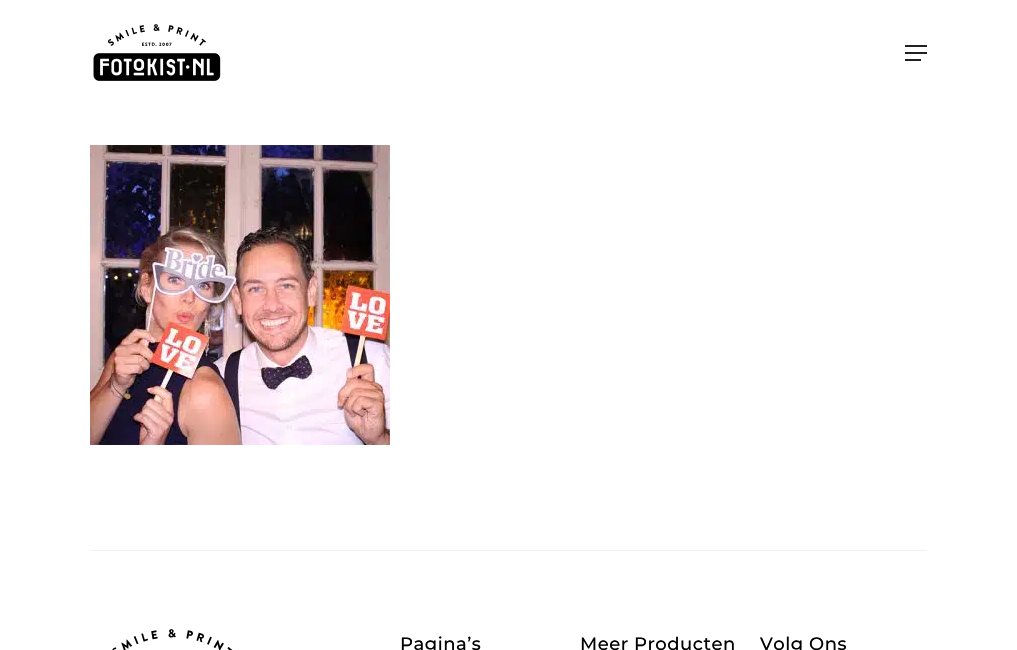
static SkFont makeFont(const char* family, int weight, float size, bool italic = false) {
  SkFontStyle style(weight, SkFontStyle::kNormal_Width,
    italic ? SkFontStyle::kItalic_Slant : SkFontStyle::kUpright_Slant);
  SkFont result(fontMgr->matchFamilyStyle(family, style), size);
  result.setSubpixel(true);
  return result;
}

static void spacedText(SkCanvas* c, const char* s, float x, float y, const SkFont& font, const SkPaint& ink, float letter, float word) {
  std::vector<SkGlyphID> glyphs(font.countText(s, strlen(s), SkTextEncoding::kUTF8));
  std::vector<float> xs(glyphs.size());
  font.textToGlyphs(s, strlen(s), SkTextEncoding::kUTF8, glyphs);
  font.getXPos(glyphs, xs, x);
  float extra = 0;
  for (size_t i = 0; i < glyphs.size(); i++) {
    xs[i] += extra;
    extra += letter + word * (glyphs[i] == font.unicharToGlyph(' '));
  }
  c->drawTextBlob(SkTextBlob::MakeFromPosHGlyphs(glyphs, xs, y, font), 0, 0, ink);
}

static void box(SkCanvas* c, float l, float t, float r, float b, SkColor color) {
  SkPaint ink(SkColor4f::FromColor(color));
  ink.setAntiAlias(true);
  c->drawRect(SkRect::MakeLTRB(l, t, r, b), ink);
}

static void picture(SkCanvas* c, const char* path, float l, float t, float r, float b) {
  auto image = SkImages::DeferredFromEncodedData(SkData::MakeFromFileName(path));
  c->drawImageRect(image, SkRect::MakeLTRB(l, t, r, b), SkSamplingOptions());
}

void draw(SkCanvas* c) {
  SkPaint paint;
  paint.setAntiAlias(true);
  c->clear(0xffffffff);
  picture(c, "img_01.png", 93, 24, 221, 81);
  box(c, 905, 45, 927, 47, 0xff212121);
  box(c, 905, 59, 921, 61, 0xff212121);
  box(c, 905, 52, 927, 54, 0xff212121);
  picture(c, "img_02.png", 90, 145, 390, 445);
  box(c, 90, 550, 927, 551, 0xfff0f0f0);
  picture(c, "img_03.png", 112, 629, 233, 650);
  SkFont face1 = makeFont("Montserrat", 500, 18);
  paint.setColor(0xff000000);
  spacedText(c, "Pagina’s", 400, 650, face1, paint, 0.5f, 0);
  spacedText(c, "Meer Producten", 580, 650, face1, paint, 0.5f, 0);
  spacedText(c, "Volg Ons", 760, 650, face1, paint, 0.5f, 0);
}
